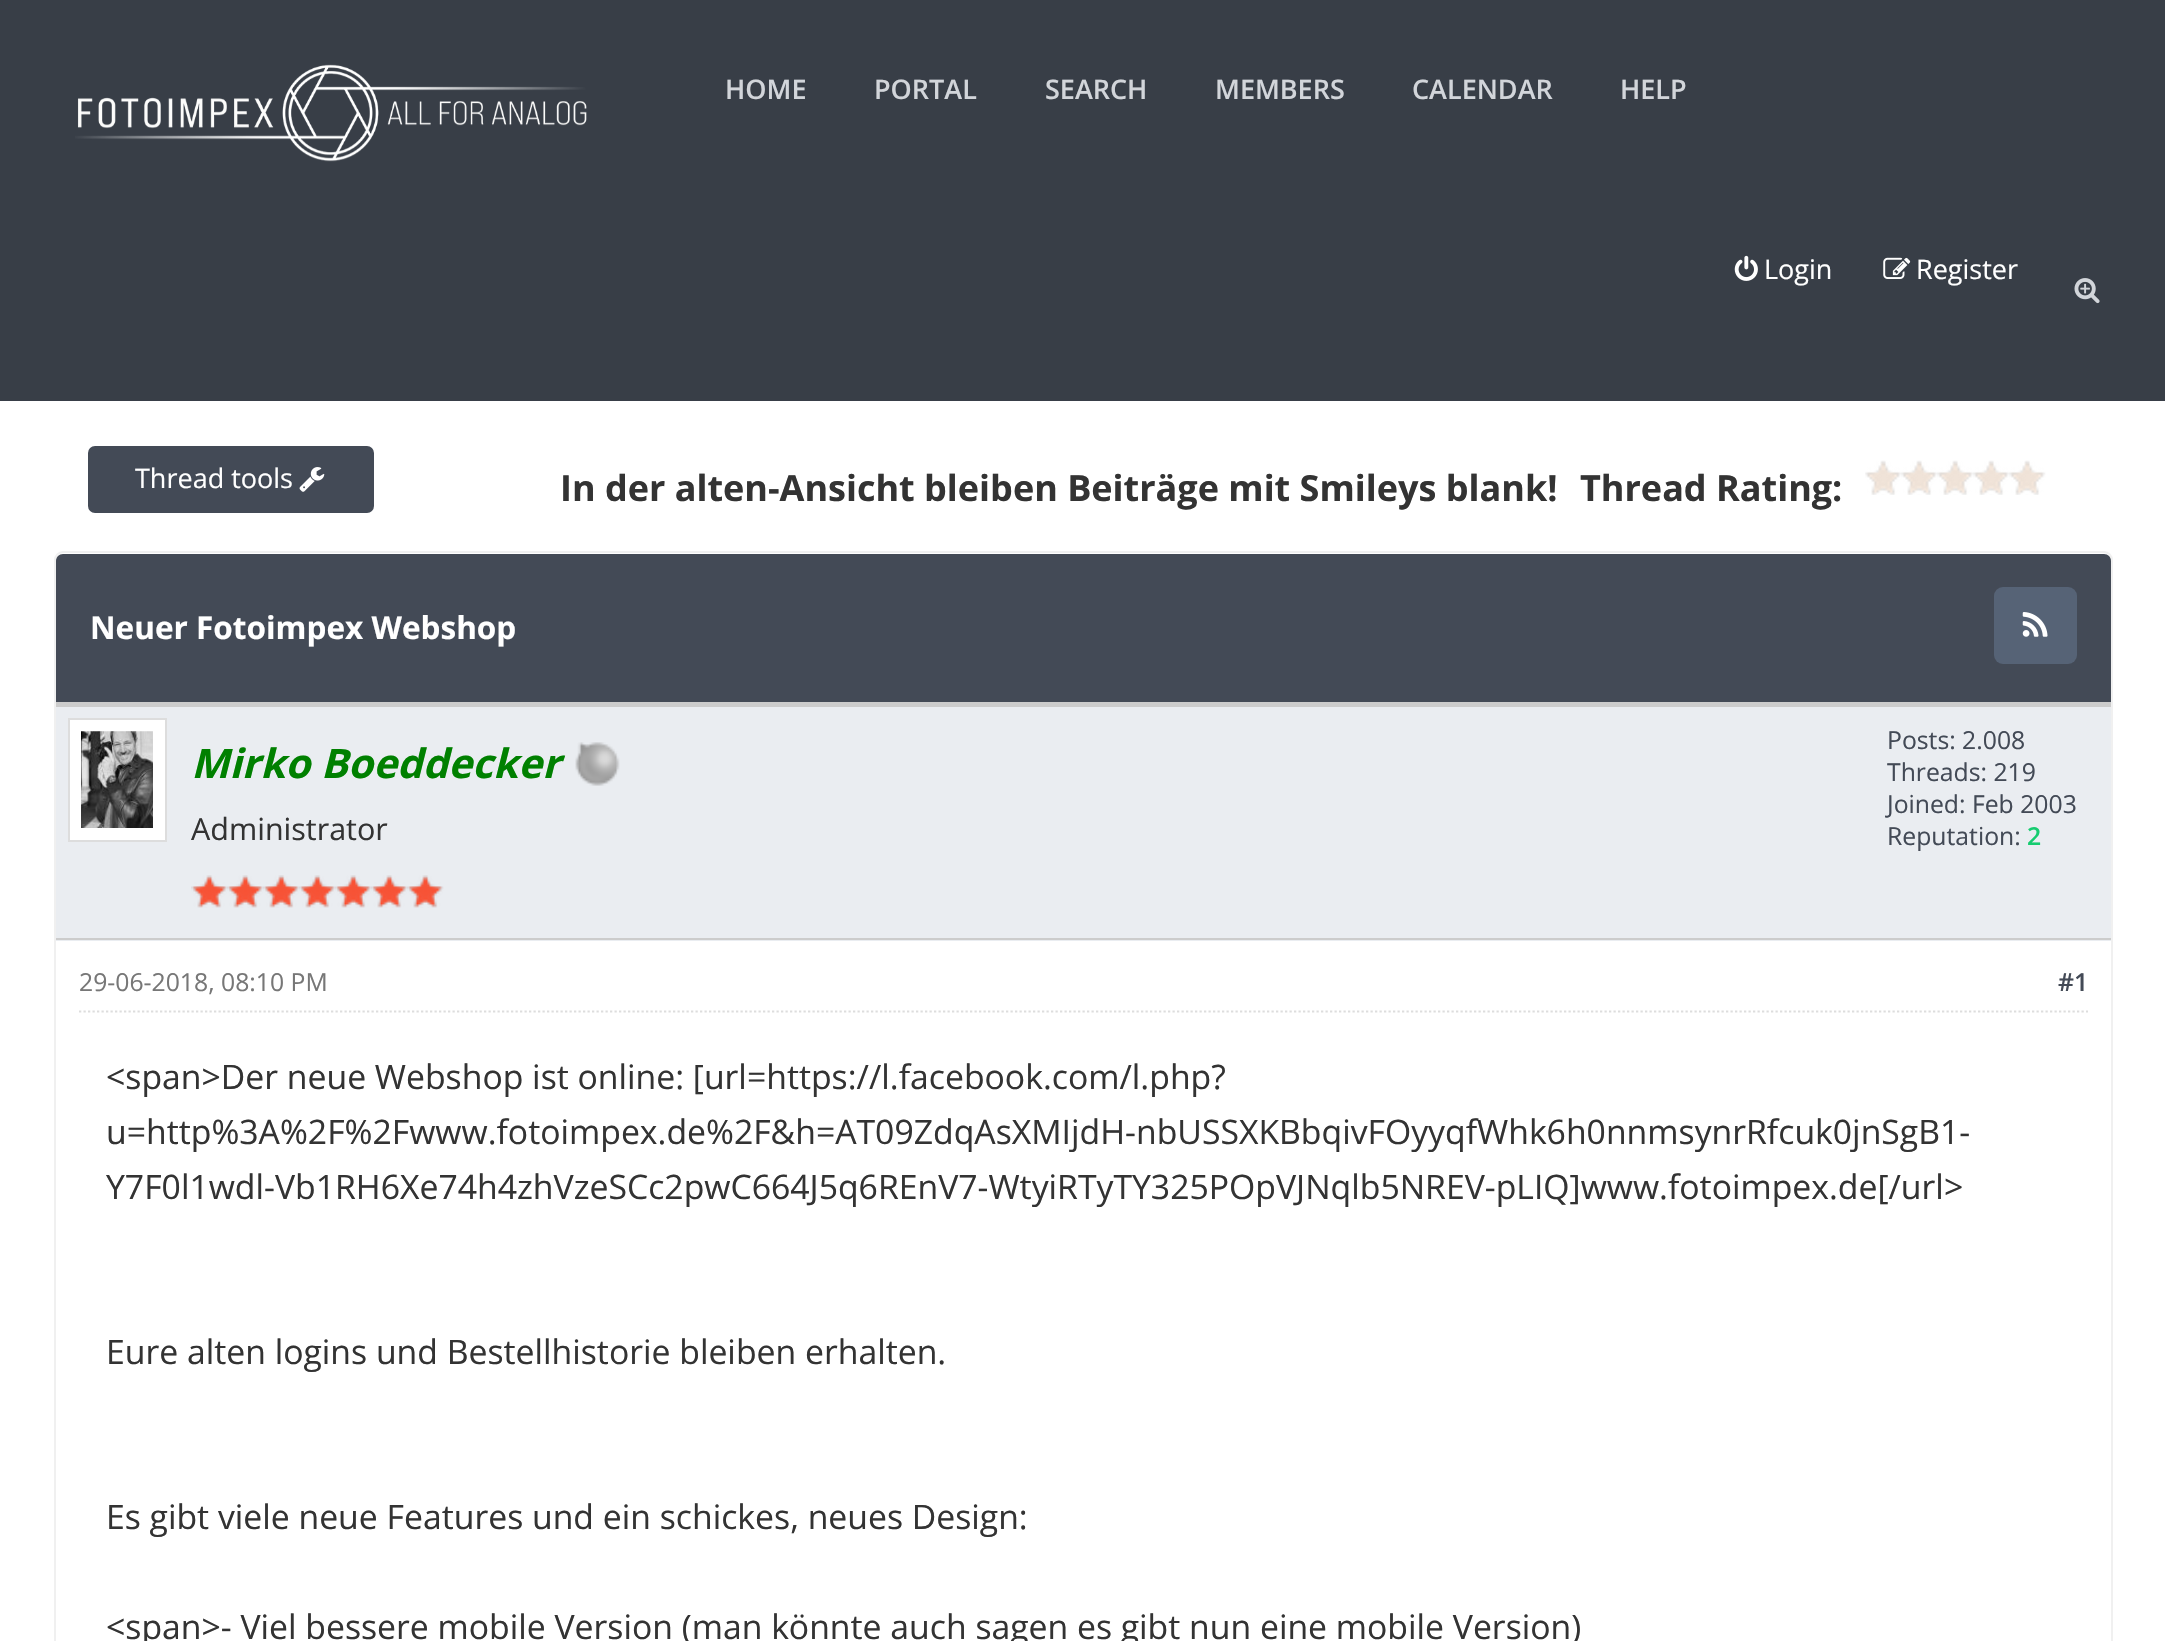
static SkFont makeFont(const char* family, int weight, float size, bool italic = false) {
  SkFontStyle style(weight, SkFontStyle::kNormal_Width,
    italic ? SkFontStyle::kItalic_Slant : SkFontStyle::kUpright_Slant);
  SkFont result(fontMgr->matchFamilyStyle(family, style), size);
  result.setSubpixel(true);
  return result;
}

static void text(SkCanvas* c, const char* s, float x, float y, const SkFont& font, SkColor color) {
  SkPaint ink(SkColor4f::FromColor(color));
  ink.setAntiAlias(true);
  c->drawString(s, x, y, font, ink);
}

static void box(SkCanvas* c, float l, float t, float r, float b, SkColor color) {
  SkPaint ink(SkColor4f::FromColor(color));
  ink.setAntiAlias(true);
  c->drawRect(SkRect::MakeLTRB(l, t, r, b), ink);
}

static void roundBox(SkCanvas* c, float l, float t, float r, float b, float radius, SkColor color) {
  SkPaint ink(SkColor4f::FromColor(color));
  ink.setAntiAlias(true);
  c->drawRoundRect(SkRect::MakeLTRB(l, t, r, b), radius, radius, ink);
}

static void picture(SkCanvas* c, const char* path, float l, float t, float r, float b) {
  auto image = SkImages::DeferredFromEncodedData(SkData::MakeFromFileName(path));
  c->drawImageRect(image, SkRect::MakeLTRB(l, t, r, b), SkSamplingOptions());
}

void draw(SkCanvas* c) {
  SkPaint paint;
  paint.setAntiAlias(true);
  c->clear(0xffffffff);
  box(c, 0, 0, 2165, 401, 0xff383e47);
  picture(c, "img_01.png", 75, 64, 587, 162);
  SkFont face1 = makeFont("Open Sans", 600, 27);
  text(c, "HOME", 725, 99, face1, 0xffd2d5da);
  text(c, "PORTAL", 874, 99, face1, 0xffd2d5da);
  text(c, "SEARCH", 1045, 99, face1, 0xffd2d5da);
  text(c, "MEMBERS", 1215, 99, face1, 0xffd2d5da);
  text(c, "CALENDAR", 1412, 99, face1, 0xffd2d5da);
  text(c, "HELP", 1620, 99, face1, 0xffd2d5da);
  picture(c, "img_02.png", 1734, 255, 1758, 281);
  SkFont face2 = makeFont("Open Sans", 400, 27);
  text(c, "Login", 1764, 279, face2, 0xffffffff);
  picture(c, "img_03.png", 1883, 257, 1911, 279);
  text(c, "Register", 1916, 279, face2, 0xffffffff);
  picture(c, "img_04.png", 2074, 278, 2100, 304);
  paint.setColor(0xff434a56);
  c->drawRoundRect(SkRect::MakeLTRB(89, 447, 373, 512), 6, 6, paint);
  paint.setStyle(SkPaint::kStroke_Style);
  paint.setStrokeWidth(2);
  c->drawRoundRect(SkRect::MakeLTRB(89, 447, 373, 512), 6, 6, paint);
  text(c, "Thread tools", 135, 488, face2, 0xffffffff);
  picture(c, "img_05.png", 299, 467, 325, 492);
  SkFont face3 = makeFont("Open Sans", 700, 36);
  text(c, "In der alten-Ansicht bleiben Beiträge mit Smileys blank!", 560, 501, face3, 0xff333333);
  text(c, "Thread Rating:", 1580, 501, face3, 0xff333333);
  picture(c, "img_06.png", 1865, 460, 2046, 495);
  paint.setColor(0xfff0f0f0);
  c->drawRoundRect(SkRect::MakeLTRB(55, 552, 2112, 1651), 8, 8, paint);
  paint.setStyle(SkPaint::kFill_Style);
  paint.setColor(0xff434a56);
  c->drawPath(SkPathBuilder().moveTo(63, 554).lineTo(2104, 554).cubicTo(2108, 554, 2111, 557, 2111, 561).lineTo(2111, 702).lineTo(56, 702).lineTo(56, 561).cubicTo(56, 557, 59, 554, 63, 554).close().detach(), paint);
  SkFont face4 = makeFont("Open Sans", 700, 31.5f);
  text(c, "Neuer Fotoimpex Webshop", 90, 639, face4, 0xffffffff);
  roundBox(c, 1994, 587, 2077, 664, 9, 0xff566376);
  picture(c, "img_07.png", 2022, 612, 2048, 637);
  box(c, 56, 707, 2111, 941, 0xffeaedf1);
  box(c, 56, 702, 2111, 707, 0xffcccccc);
  box(c, 56, 938, 2111, 940, 0xffcccccc);
  paint.setColor(0xffffffff);
  c->drawRect(SkRect::MakeLTRB(69, 719, 166, 841), paint);
  paint.setStyle(SkPaint::kStroke_Style);
  paint.setColor(0xffdddddd);
  c->drawRect(SkRect::MakeLTRB(69, 719, 166, 841), paint);
  picture(c, "img_08.png", 81, 731, 153, 828);
  SkFont face5 = makeFont("Open Sans", 700, 40.5f, true);
  text(c, "Mirko Boeddecker", 191, 778, face5, 0xff008000);
  picture(c, "img_09.png", 575, 742, 620, 786);
  SkFont face6 = makeFont("Open Sans", 400, 30.5f);
  text(c, "Administrator", 191, 840, face6, 0xff333333);
  picture(c, "img_10.png", 191, 875, 228, 908);
  picture(c, "img_11.png", 227, 875, 264, 908);
  picture(c, "img_12.png", 263, 875, 300, 908);
  picture(c, "img_12.png", 299, 875, 336, 908);
  picture(c, "img_11.png", 335, 875, 372, 908);
  picture(c, "img_11.png", 371, 875, 408, 908);
  picture(c, "img_12.png", 407, 875, 444, 908);
  SkFont face7 = makeFont("Open Sans", 400, 24.75f);
  text(c, "Posts: 2.008", 1887, 749, face7, 0xff434a56);
  text(c, "Threads: 219", 1887, 781, face7, 0xff434a56);
  text(c, "Joined: Feb 2003", 1887, 813, face7, 0xff434a56);
  text(c, "Reputation:", 1887, 845, face7, 0xff434a56);
  SkFont face8 = makeFont("Open Sans", 600, 24.75f);
  text(c, "2", 2027, 845, face8, 0xff16cc70);
  paint.setStrokeWidth(2.2f);
  paint.setPathEffect(SkDashPathEffect::Make({{2.25f, 2.25f}}, 0));
  c->drawPath(SkPathBuilder().moveTo(79, 1011.5f).lineTo(2088, 1011.5f).detach(), paint);
  paint.setPathEffect(nullptr);
  text(c, "29-06-2018, 08:10 PM", 79, 991, face7, 0xff777777);
  text(c, "#1", 2058, 991, face8, 0xff434a56);
  SkFont face9 = makeFont("Open Sans", 400, 33.75f);
  text(c, "<span>Der neue Webshop ist online: [url=https://l.facebook.com/l.php?", 106, 1089, face9, 0xff333333);
  text(c, "u=http%3A%2F%2Fwww.fotoimpex.de%2F&h=AT09ZdqAsXMIjdH-nbUSSXKBbqivFOyyqfWhk6h0nnmsynrRfcuk0jnSgB1-", 106, 1144, face9, 0xff333333);
  text(c, "Y7F0l1wdl-Vb1RH6Xe74h4zhVzeSCc2pwC664J5q6REnV7-WtyiRTyTY325POpVJNqlb5NREV-pLIQ]www.fotoimpex.de[/url>", 106, 1199, face9, 0xff333333);
  text(c, "Eure alten logins und Bestellhistorie bleiben erhalten.", 106, 1364, face9, 0xff333333);
  text(c, "Es gibt viele neue Features und ein schickes, neues Design:", 106, 1529, face9, 0xff333333);
  text(c, "<span>- Viel bessere mobile Version (man könnte auch sagen es gibt nun eine mobile Version)", 106, 1639, face9, 0xff333333);
}
